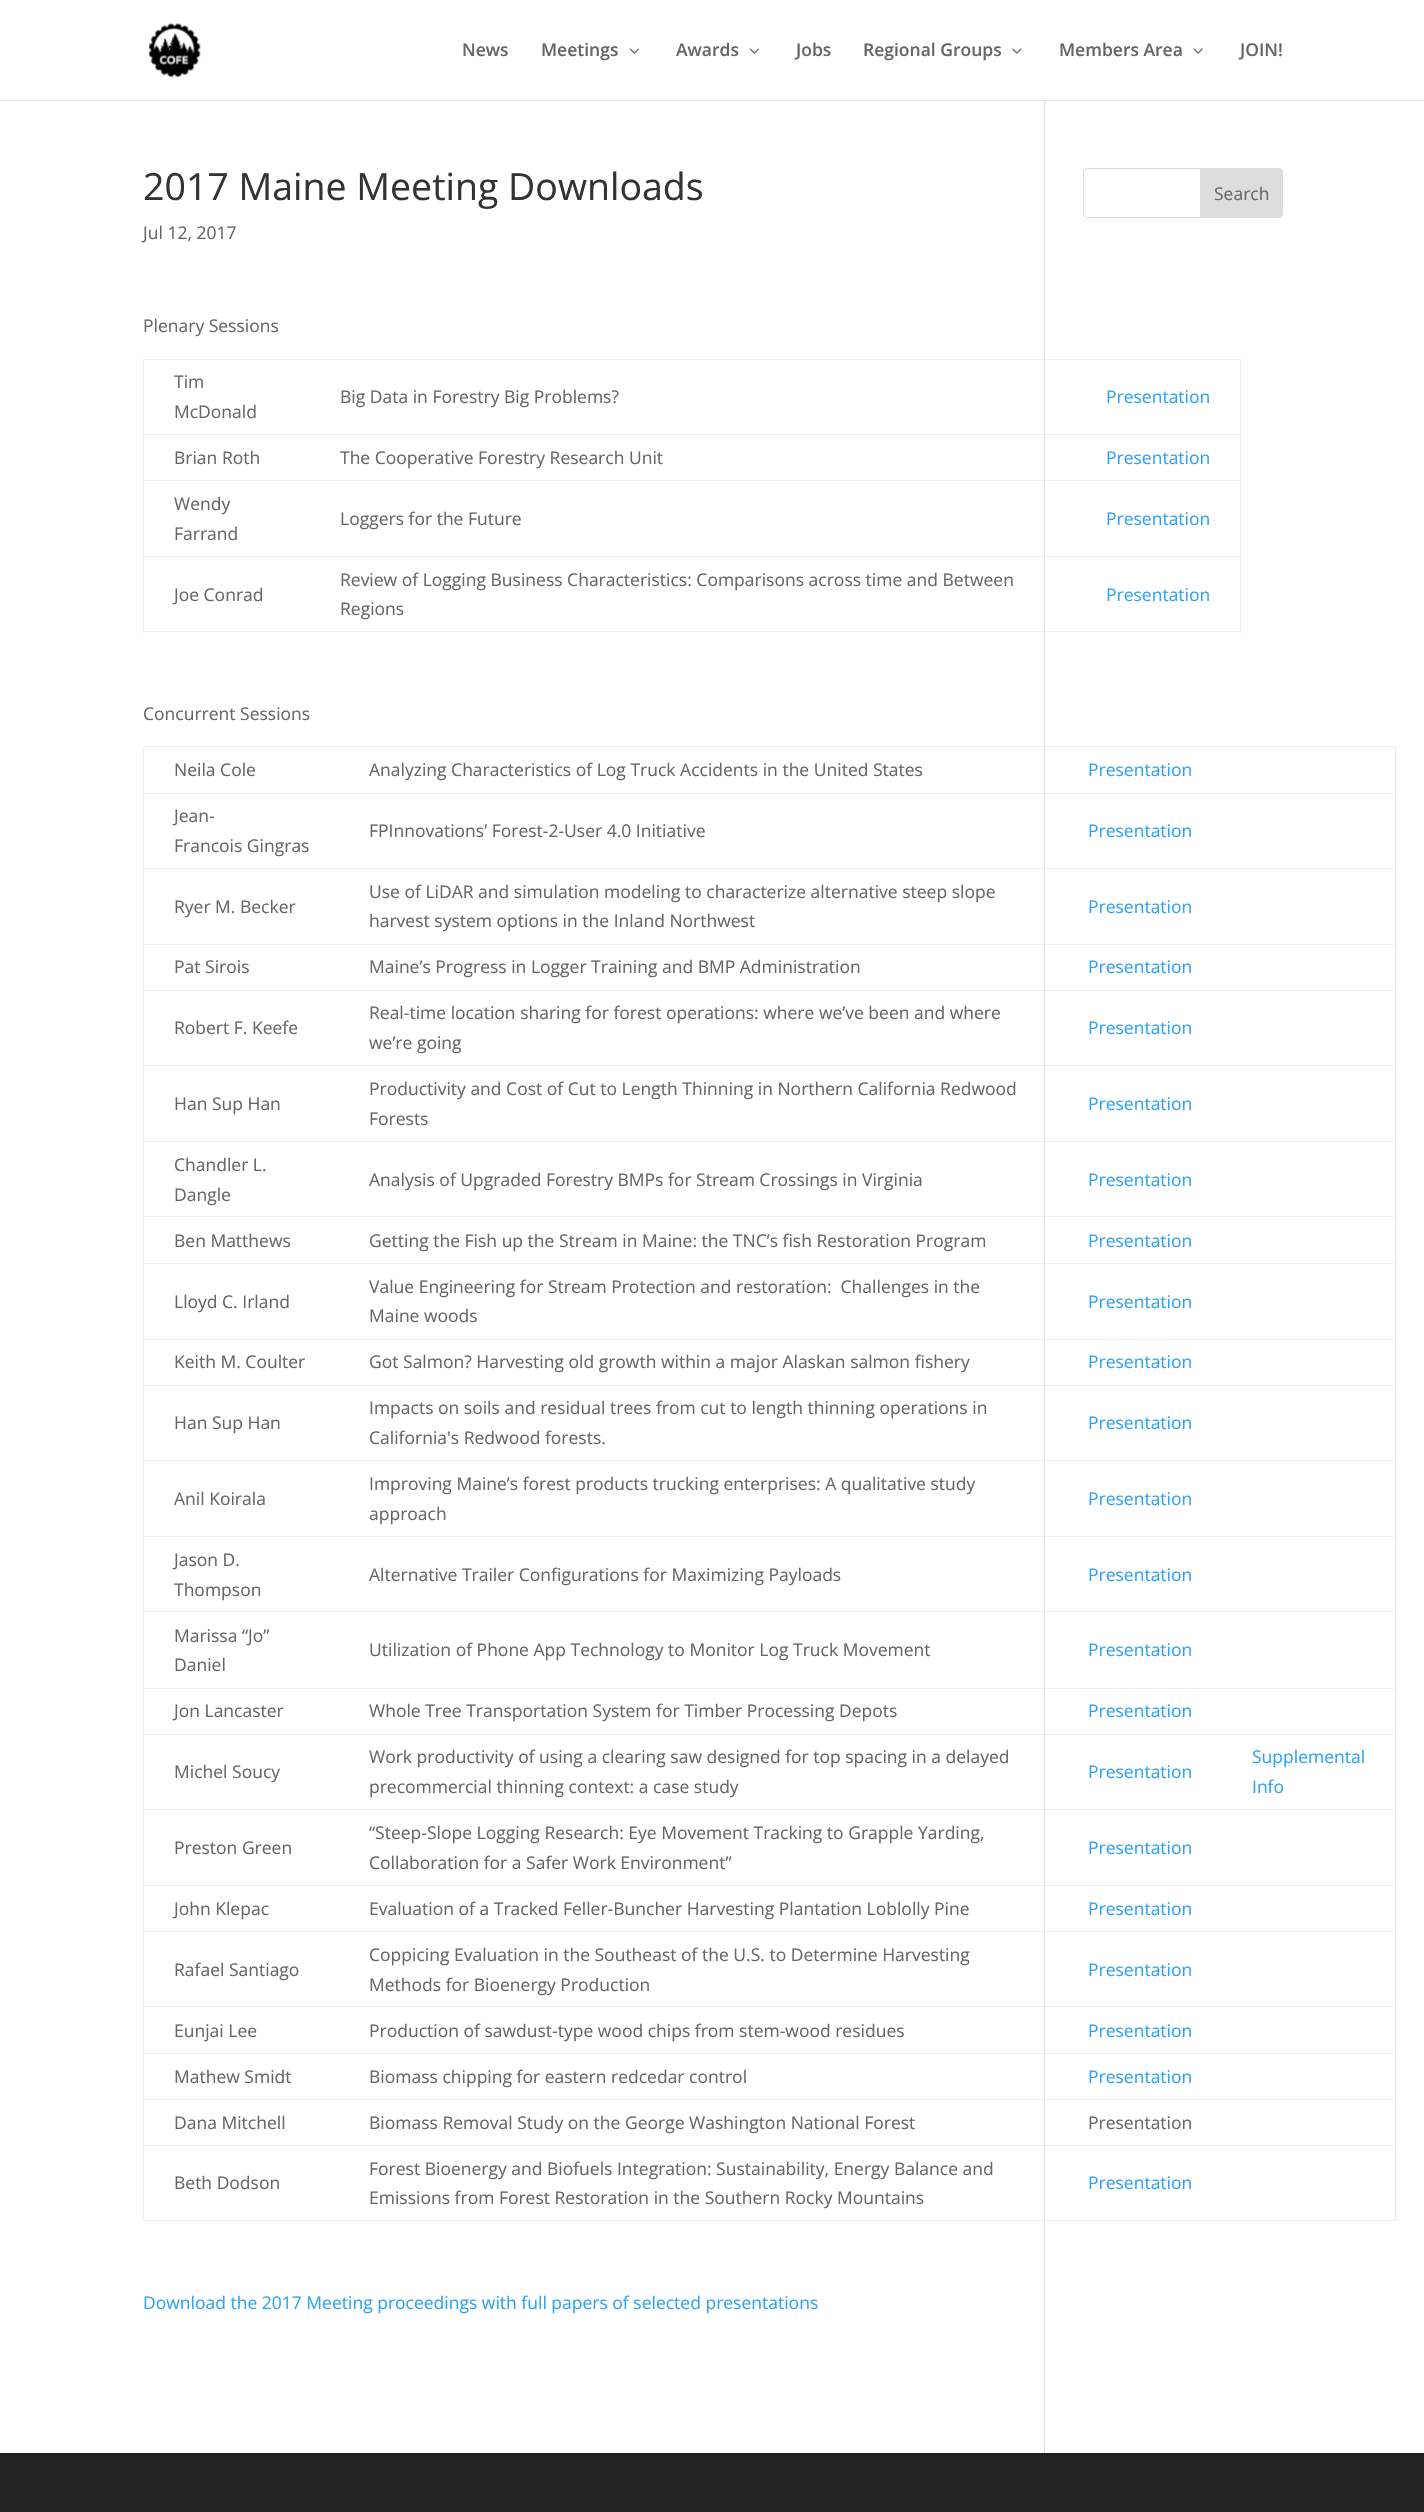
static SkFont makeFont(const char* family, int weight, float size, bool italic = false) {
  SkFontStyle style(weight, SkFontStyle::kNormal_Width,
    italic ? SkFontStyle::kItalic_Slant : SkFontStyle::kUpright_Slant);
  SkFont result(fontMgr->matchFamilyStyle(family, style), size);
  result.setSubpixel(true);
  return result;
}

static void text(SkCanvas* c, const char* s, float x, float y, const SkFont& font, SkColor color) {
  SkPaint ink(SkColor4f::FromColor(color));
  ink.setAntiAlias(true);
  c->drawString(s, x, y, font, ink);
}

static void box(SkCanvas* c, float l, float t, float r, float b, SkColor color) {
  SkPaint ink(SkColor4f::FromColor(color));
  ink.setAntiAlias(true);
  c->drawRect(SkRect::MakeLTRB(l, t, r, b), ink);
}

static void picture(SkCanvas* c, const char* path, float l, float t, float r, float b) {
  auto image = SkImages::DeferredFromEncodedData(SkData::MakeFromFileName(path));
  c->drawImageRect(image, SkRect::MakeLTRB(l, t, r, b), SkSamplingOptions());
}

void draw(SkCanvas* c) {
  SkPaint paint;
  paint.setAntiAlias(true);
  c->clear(0xffffffff);
  box(c, 0, 100, 1424, 101, 0xffe6e6e6);
  box(c, 143, 359, 1241, 360, 0xffeeeeee);
  box(c, 1240, 359, 1241, 633, 0xffeeeeee);
  box(c, 143, 631, 1241, 632, 0xffeeeeee);
  box(c, 143, 359, 144, 633, 0xffeeeeee);
  box(c, 143, 434, 1241, 435, 0xffeeeeee);
  box(c, 143, 480, 1241, 481, 0xffeeeeee);
  box(c, 143, 556, 1241, 557, 0xffeeeeee);
  box(c, 143, 746, 1396, 747, 0xffeeeeee);
  box(c, 1395, 746, 1396, 2221, 0xffeeeeee);
  box(c, 143, 2220, 1396, 2221, 0xffeeeeee);
  box(c, 143, 746, 144, 2221, 0xffeeeeee);
  box(c, 143, 793, 1396, 794, 0xffeeeeee);
  box(c, 143, 868, 1396, 869, 0xffeeeeee);
  box(c, 143, 944, 1396, 945, 0xffeeeeee);
  box(c, 143, 990, 1396, 991, 0xffeeeeee);
  box(c, 143, 1065, 1396, 1066, 0xffeeeeee);
  box(c, 143, 1141, 1396, 1142, 0xffeeeeee);
  box(c, 143, 1216, 1396, 1217, 0xffeeeeee);
  box(c, 143, 1263, 1396, 1264, 0xffeeeeee);
  box(c, 143, 1339, 1396, 1340, 0xffeeeeee);
  box(c, 143, 1385, 1396, 1386, 0xffeeeeee);
  box(c, 143, 1460, 1396, 1461, 0xffeeeeee);
  box(c, 143, 1536, 1396, 1537, 0xffeeeeee);
  box(c, 143, 1611, 1396, 1612, 0xffeeeeee);
  box(c, 143, 1688, 1396, 1689, 0xffeeeeee);
  box(c, 143, 1734, 1396, 1735, 0xffeeeeee);
  box(c, 143, 1809, 1396, 1810, 0xffeeeeee);
  box(c, 143, 1885, 1396, 1886, 0xffeeeeee);
  box(c, 143, 1931, 1396, 1932, 0xffeeeeee);
  box(c, 143, 2006, 1396, 2007, 0xffeeeeee);
  box(c, 143, 2053, 1396, 2054, 0xffeeeeee);
  box(c, 143, 2099, 1396, 2100, 0xffeeeeee);
  box(c, 143, 2145, 1396, 2146, 0xffeeeeee);
  box(c, 1044, 95, 1045, 2453, 0xffe2e2e2);
  box(c, 1044, 95, 1045, 100, 0xffffffff);
  picture(c, "img_01.png", 148, 23, 201, 78);
  SkFont face1 = makeFont("Open Sans", 600, 17.5f);
  text(c, "News", 462, 56, face1, 0xff666666);
  text(c, "Meetings", 541, 56, face1, 0xff666666);
  picture(c, "img_02.png", 629, 48, 639, 54);
  text(c, "Awards", 676, 56, face1, 0xff666666);
  picture(c, "img_02.png", 749, 48, 759, 54);
  text(c, "Jobs", 796, 56, face1, 0xff666666);
  text(c, "Regional Groups", 863, 56, face1, 0xff666666);
  picture(c, "img_03.png", 1012, 48, 1022, 54);
  text(c, "Members Area", 1059, 56, face1, 0xff666666);
  picture(c, "img_04.png", 1193, 48, 1203, 54);
  text(c, "JOIN!", 1240, 56, face1, 0xff666666);
  box(c, 1044, 100, 1045, 101, 0xffcbcbcb);
  SkFont face2 = makeFont("Open Sans", 400, 37.5f);
  text(c, "2017 Maine Meeting Downloads", 143, 200, face2, 0xff333333);
  SkFont face3 = makeFont("Open Sans", 400, 17.5f);
  text(c, "Jul 12, 2017", 143, 239, face3, 0xff666666);
  text(c, "Plenary Sessions", 143, 332, face3, 0xff666666);
  text(c, "Tim", 174, 388, face3, 0xff666666);
  text(c, "McDonald", 174, 418, face3, 0xff666666);
  text(c, "Big Data in Forestry Big Problems?", 340, 403, face3, 0xff666666);
  text(c, "Presentation", 1106, 403, face3, 0xff2ea3f2);
  text(c, "Brian Roth", 174, 464, face3, 0xff666666);
  text(c, "The Cooperative Forestry Research Unit", 340, 464, face3, 0xff666666);
  text(c, "Presentation", 1106, 464, face3, 0xff2ea3f2);
  text(c, "Wendy", 174, 510, face3, 0xff666666);
  text(c, "Farrand", 174, 540, face3, 0xff666666);
  text(c, "Loggers for the Future", 340, 525, face3, 0xff666666);
  text(c, "Presentation", 1106, 525, face3, 0xff2ea3f2);
  text(c, "Joe Conrad", 174, 601, face3, 0xff666666);
  text(c, "Review of Logging Business Characteristics: Comparisons across time and Between", 340, 586, face3, 0xff666666);
  text(c, "Regions", 340, 615, face3, 0xff666666);
  text(c, "Presentation", 1106, 601, face3, 0xff2ea3f2);
  text(c, "Concurrent Sessions", 143, 720, face3, 0xff666666);
  text(c, "Neila Cole", 174, 776, face3, 0xff666666);
  text(c, "Analyzing Characteristics of Log Truck Accidents in the United States", 369, 776, face3, 0xff666666);
  text(c, "Presentation", 1088, 776, face3, 0xff2ea3f2);
  text(c, "Jean-", 174, 822, face3, 0xff666666);
  text(c, "Francois Gingras", 174, 852, face3, 0xff666666);
  text(c, "FPInnovations’ Forest-2-User 4.0 Initiative", 369, 837, face3, 0xff666666);
  text(c, "Presentation", 1088, 837, face3, 0xff2ea3f2);
  text(c, "Ryer M. Becker", 174, 913, face3, 0xff666666);
  text(c, "Use of LiDAR and simulation modeling to characterize alternative steep slope", 369, 898, face3, 0xff666666);
  text(c, "harvest system options in the Inland Northwest", 369, 927, face3, 0xff666666);
  text(c, "Presentation", 1088, 913, face3, 0xff2ea3f2);
  text(c, "Pat Sirois", 174, 973, face3, 0xff666666);
  text(c, "Maine’s Progress in Logger Training and BMP Administration", 369, 973, face3, 0xff666666);
  text(c, "Presentation", 1088, 973, face3, 0xff2ea3f2);
  text(c, "Robert F. Keefe", 174, 1034, face3, 0xff666666);
  text(c, "Real-time location sharing for forest operations: where we’ve been and where", 369, 1019, face3, 0xff666666);
  text(c, "we’re going", 369, 1049, face3, 0xff666666);
  text(c, "Presentation", 1088, 1034, face3, 0xff2ea3f2);
  text(c, "Han Sup Han", 174, 1110, face3, 0xff666666);
  text(c, "Productivity and Cost of Cut to Length Thinning in Northern California Redwood", 369, 1095, face3, 0xff666666);
  text(c, "Forests", 369, 1125, face3, 0xff666666);
  text(c, "Presentation", 1088, 1110, face3, 0xff2ea3f2);
  text(c, "Chandler L.", 174, 1171, face3, 0xff666666);
  text(c, "Dangle", 174, 1201, face3, 0xff666666);
  text(c, "Analysis of Upgraded Forestry BMPs for Stream Crossings in Virginia", 369, 1186, face3, 0xff666666);
  text(c, "Presentation", 1088, 1186, face3, 0xff2ea3f2);
  text(c, "Ben Matthews", 174, 1247, face3, 0xff666666);
  text(c, "Getting the Fish up the Stream in Maine: the TNC’s fish Restoration Program", 369, 1247, face3, 0xff666666);
  text(c, "Presentation", 1088, 1247, face3, 0xff2ea3f2);
  text(c, "Lloyd C. Irland", 174, 1308, face3, 0xff666666);
  text(c, "Value Engineering for Stream Protection and restoration:  Challenges in the", 369, 1293, face3, 0xff666666);
  text(c, "Maine woods", 369, 1322, face3, 0xff666666);
  text(c, "Presentation", 1088, 1308, face3, 0xff2ea3f2);
  text(c, "Keith M. Coulter", 174, 1368, face3, 0xff666666);
  text(c, "Got Salmon? Harvesting old growth within a major Alaskan salmon fishery", 369, 1368, face3, 0xff666666);
  text(c, "Presentation", 1088, 1368, face3, 0xff2ea3f2);
  text(c, "Han Sup Han", 174, 1429, face3, 0xff666666);
  text(c, "Impacts on soils and residual trees from cut to length thinning operations in", 369, 1414, face3, 0xff666666);
  text(c, "California's Redwood forests.", 369, 1444, face3, 0xff666666);
  text(c, "Presentation", 1088, 1429, face3, 0xff2ea3f2);
  text(c, "Anil Koirala", 174, 1505, face3, 0xff666666);
  text(c, "Improving Maine’s forest products trucking enterprises: A qualitative study", 369, 1490, face3, 0xff666666);
  text(c, "approach", 369, 1520, face3, 0xff666666);
  text(c, "Presentation", 1088, 1505, face3, 0xff2ea3f2);
  text(c, "Jason D.", 174, 1566, face3, 0xff666666);
  text(c, "Thompson", 174, 1596, face3, 0xff666666);
  text(c, "Alternative Trailer Configurations for Maximizing Payloads", 369, 1581, face3, 0xff666666);
  text(c, "Presentation", 1088, 1581, face3, 0xff2ea3f2);
  text(c, "Marissa “Jo”", 174, 1642, face3, 0xff666666);
  text(c, "Daniel", 174, 1671, face3, 0xff666666);
  text(c, "Utilization of Phone App Technology to Monitor Log Truck Movement", 369, 1656, face3, 0xff666666);
  text(c, "Presentation", 1088, 1656, face3, 0xff2ea3f2);
  text(c, "Jon Lancaster", 174, 1717, face3, 0xff666666);
  text(c, "Whole Tree Transportation System for Timber Processing Depots", 369, 1717, face3, 0xff666666);
  text(c, "Presentation", 1088, 1717, face3, 0xff2ea3f2);
  text(c, "Michel Soucy", 174, 1778, face3, 0xff666666);
  text(c, "Work productivity of using a clearing saw designed for top spacing in a delayed", 369, 1763, face3, 0xff666666);
  text(c, "precommercial thinning context: a case study", 369, 1793, face3, 0xff666666);
  text(c, "Presentation", 1088, 1778, face3, 0xff2ea3f2);
  text(c, "Supplemental", 1252, 1763, face3, 0xff2ea3f2);
  text(c, "Info", 1252, 1793, face3, 0xff2ea3f2);
  text(c, "Preston Green", 174, 1854, face3, 0xff666666);
  text(c, "“Steep-Slope Logging Research: Eye Movement Tracking to Grapple Yarding,", 369, 1839, face3, 0xff666666);
  text(c, "Collaboration for a Safer Work Environment”", 369, 1869, face3, 0xff666666);
  text(c, "Presentation", 1088, 1854, face3, 0xff2ea3f2);
  text(c, "John Klepac", 174, 1915, face3, 0xff666666);
  text(c, "Evaluation of a Tracked Feller-Buncher Harvesting Plantation Loblolly Pine", 369, 1915, face3, 0xff666666);
  text(c, "Presentation", 1088, 1915, face3, 0xff2ea3f2);
  text(c, "Rafael Santiago", 174, 1976, face3, 0xff666666);
  text(c, "Coppicing Evaluation in the Southeast of the U.S. to Determine Harvesting", 369, 1961, face3, 0xff666666);
  text(c, "Methods for Bioenergy Production", 369, 1991, face3, 0xff666666);
  text(c, "Presentation", 1088, 1976, face3, 0xff2ea3f2);
  text(c, "Eunjai Lee", 174, 2037, face3, 0xff666666);
  text(c, "Production of sawdust-type wood chips from stem-wood residues", 369, 2037, face3, 0xff666666);
  text(c, "Presentation", 1088, 2037, face3, 0xff2ea3f2);
  text(c, "Mathew Smidt", 174, 2083, face3, 0xff666666);
  text(c, "Biomass chipping for eastern redcedar control", 369, 2083, face3, 0xff666666);
  text(c, "Presentation", 1088, 2083, face3, 0xff2ea3f2);
  text(c, "Dana Mitchell", 174, 2129, face3, 0xff666666);
  text(c, "Biomass Removal Study on the George Washington National Forest", 369, 2129, face3, 0xff666666);
  text(c, "Presentation", 1088, 2129, face3, 0xff666666);
  text(c, "Beth Dodson", 174, 2189, face3, 0xff666666);
  text(c, "Forest Bioenergy and Biofuels Integration: Sustainability, Energy Balance and", 369, 2175, face3, 0xff666666);
  text(c, "Emissions from Forest Restoration in the Southern Rocky Mountains", 369, 2204, face3, 0xff666666);
  text(c, "Presentation", 1088, 2189, face3, 0xff2ea3f2);
  text(c, "Download the 2017 Meeting proceedings with full papers of selected presentations", 143, 2309, face3, 0xff2ea3f2);
  paint.setStyle(SkPaint::kStroke_Style);
  paint.setStrokeWidth(1);
  paint.setColor(0xffdddddd);
  c->drawRoundRect(SkRect::MakeLTRB(1083.5f, 168.5f, 1282.5f, 217.5f), 3.5f, 3.5f, paint);
  paint.setStyle(SkPaint::kFill_Style);
  c->drawPath(SkPathBuilder().moveTo(1200.5f, 168.5f).lineTo(1279, 168.5f).cubicTo(1281, 168.5f, 1282.5f, 170, 1282.5f, 172).lineTo(1282.5f, 214).cubicTo(1282.5f, 216, 1281, 217.5f, 1279, 217.5f).lineTo(1200.5f, 217.5f).close().detach(), paint);
  paint.setStyle(SkPaint::kStroke_Style);
  c->drawPath(SkPathBuilder().moveTo(1200.5f, 168.5f).lineTo(1279, 168.5f).cubicTo(1281, 168.5f, 1282.5f, 170, 1282.5f, 172).lineTo(1282.5f, 214).cubicTo(1282.5f, 216, 1281, 217.5f, 1279, 217.5f).lineTo(1200.5f, 217.5f).close().detach(), paint);
  text(c, "Search", 1214, 200, face3, 0xff666666);
  box(c, 0, 2453, 1424, 2512, 0xff222222);
}
